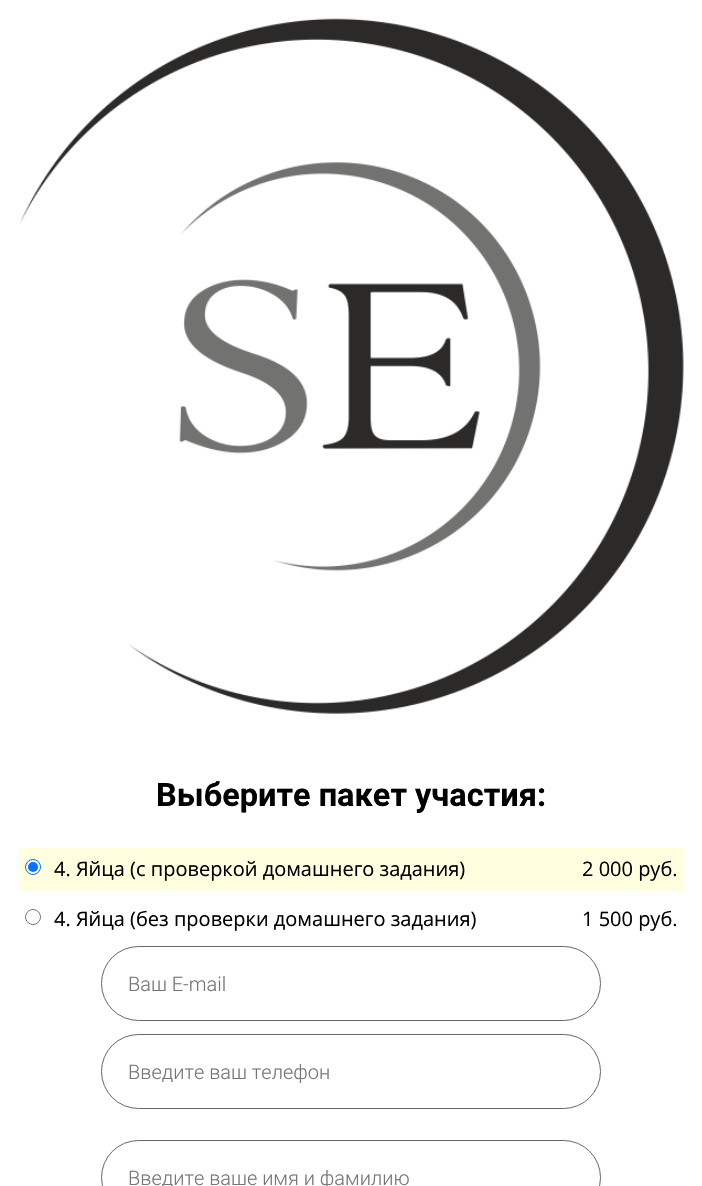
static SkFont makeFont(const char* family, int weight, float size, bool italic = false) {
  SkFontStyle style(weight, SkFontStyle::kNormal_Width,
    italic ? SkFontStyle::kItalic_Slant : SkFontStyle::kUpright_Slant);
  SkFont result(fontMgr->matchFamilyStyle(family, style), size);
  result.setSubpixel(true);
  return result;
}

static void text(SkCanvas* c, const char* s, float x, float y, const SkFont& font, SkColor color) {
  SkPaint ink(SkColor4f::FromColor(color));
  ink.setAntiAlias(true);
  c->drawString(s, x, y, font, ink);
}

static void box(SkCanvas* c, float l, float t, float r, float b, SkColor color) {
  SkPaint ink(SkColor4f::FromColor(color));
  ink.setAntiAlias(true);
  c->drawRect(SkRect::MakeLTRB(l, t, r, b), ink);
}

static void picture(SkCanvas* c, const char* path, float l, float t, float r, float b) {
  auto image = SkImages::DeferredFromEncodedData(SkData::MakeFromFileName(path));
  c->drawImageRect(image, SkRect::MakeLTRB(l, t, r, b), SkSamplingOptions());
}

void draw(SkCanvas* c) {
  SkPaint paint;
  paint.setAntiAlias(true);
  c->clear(0xffffffff);
  picture(c, "img_01.png", 20, 18, 684, 714);
  SkFont face1 = makeFont("Roboto", 700, 32.5f);
  text(c, "Выберите пакет участия:", 156, 806, face1, 0xff000000);
  box(c, 19, 848, 684, 891, 0xffffffe0);
  paint.setColor(0xffffffff);
  c->drawCircle(33, 867, 7.5f, paint);
  paint.setStyle(SkPaint::kStroke_Style);
  paint.setStrokeWidth(1);
  paint.setColor(0xff0075ff);
  c->drawCircle(33, 867, 7.5f, paint);
  paint.setStyle(SkPaint::kFill_Style);
  c->drawCircle(33, 867, 5, paint);
  SkFont face2 = makeFont("Open Sans", 400, 20);
  text(c, "4. Яйца (с проверкой домашнего задания)", 54, 876, face2, 0xff000000);
  text(c, "2 000 руб.", 582, 876, face2, 0xff000000);
  paint.setStyle(SkPaint::kStroke_Style);
  paint.setColor(0xff767676);
  c->drawCircle(33, 917, 7.5f, paint);
  text(c, "4. Яйца (без проверки домашнего задания)", 54, 926, face2, 0xff000000);
  text(c, "1 500 руб.", 582, 926, face2, 0xff000000);
  paint.setColor(0xff666666);
  c->drawRoundRect(SkRect::MakeLTRB(101.5f, 946.5f, 600.5f, 1020.5f), 37, 37, paint);
  SkFont face3 = makeFont("Roboto", 300, 20);
  text(c, "Ваш E-mail", 128, 991, face3, 0xff757575);
  c->drawRoundRect(SkRect::MakeLTRB(101.5f, 1034.5f, 600.5f, 1108.5f), 37, 37, paint);
  text(c, "Введите ваш телефон", 128, 1079, face3, 0xff757575);
  c->drawRoundRect(SkRect::MakeLTRB(101.5f, 1140.5f, 600.5f, 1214.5f), 37, 37, paint);
  text(c, "Введите ваше имя и фамилию", 128, 1185, face3, 0xff757575);
}
